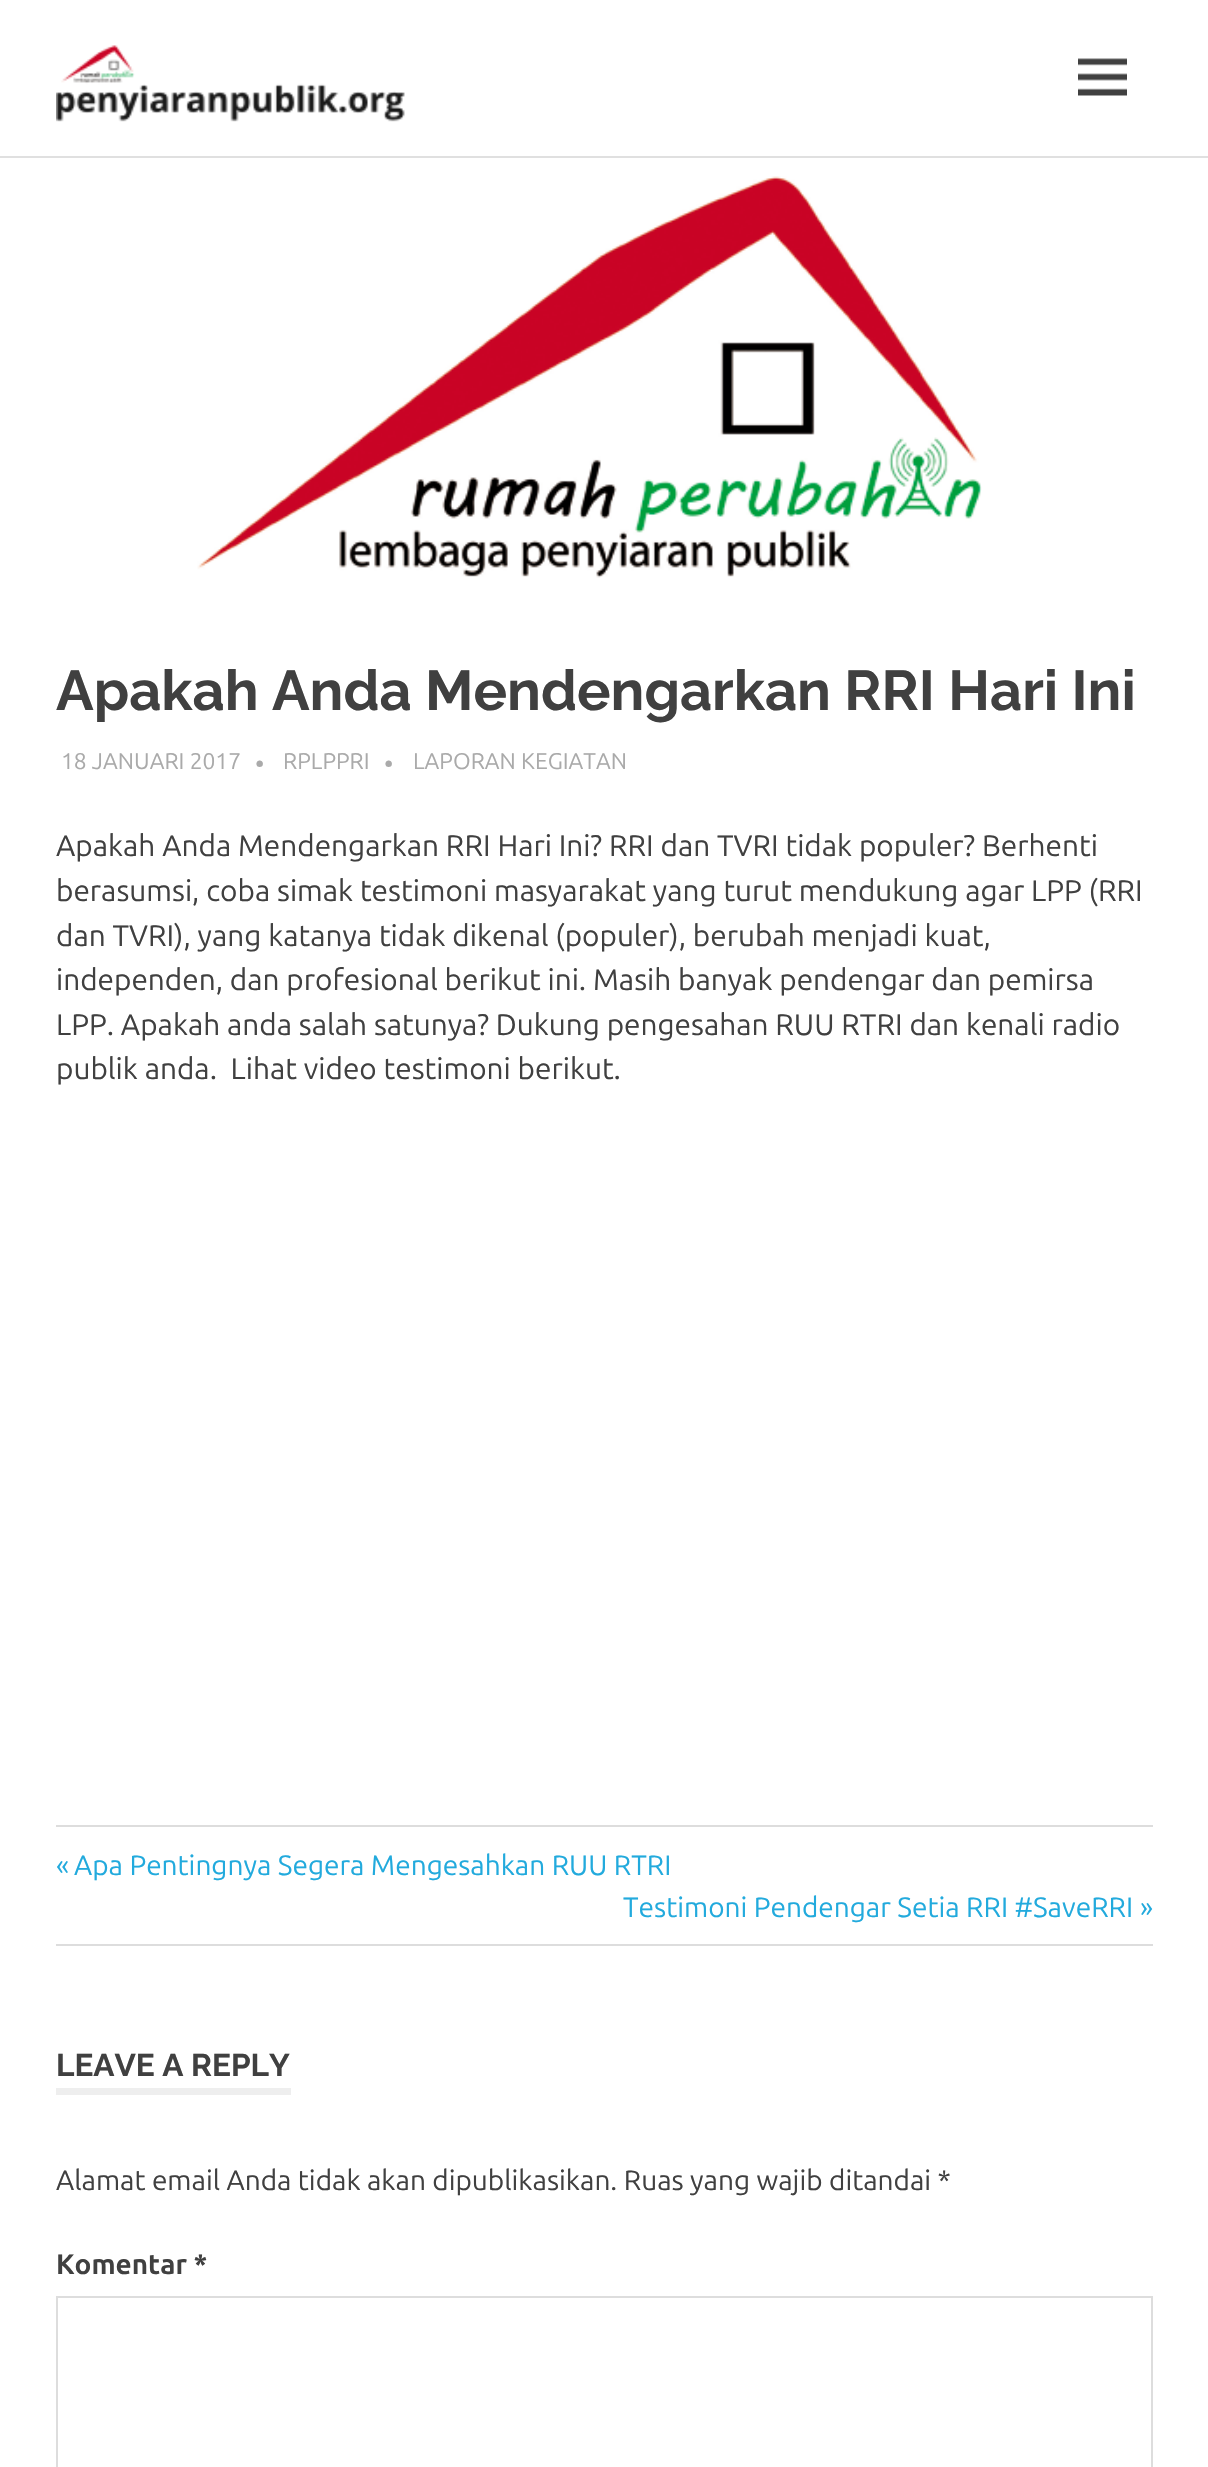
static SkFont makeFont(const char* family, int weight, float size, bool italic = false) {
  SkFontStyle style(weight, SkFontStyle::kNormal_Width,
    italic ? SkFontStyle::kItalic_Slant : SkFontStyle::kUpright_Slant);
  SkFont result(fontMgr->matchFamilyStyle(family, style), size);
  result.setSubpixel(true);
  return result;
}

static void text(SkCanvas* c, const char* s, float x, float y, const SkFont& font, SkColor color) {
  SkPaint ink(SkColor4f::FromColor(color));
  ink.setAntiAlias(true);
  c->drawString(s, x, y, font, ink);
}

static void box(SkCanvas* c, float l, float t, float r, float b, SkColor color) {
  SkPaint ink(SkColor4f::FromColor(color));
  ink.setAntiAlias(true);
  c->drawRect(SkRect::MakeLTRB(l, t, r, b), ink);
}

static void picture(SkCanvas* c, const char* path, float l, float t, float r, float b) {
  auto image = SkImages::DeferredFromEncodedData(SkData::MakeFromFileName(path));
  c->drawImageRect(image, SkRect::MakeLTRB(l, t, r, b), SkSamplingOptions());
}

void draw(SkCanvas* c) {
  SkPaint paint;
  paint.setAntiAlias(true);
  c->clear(0xffffffff);
  box(c, 0, 156, 1208, 158, 0xffe0e0e0);
  picture(c, "img_01.png", 56, 45, 405, 122);
  picture(c, "img_02.png", 1078, 58, 1127, 96);
  picture(c, "img_03.png", 197, 176, 982, 578);
  SkFont face1 = makeFont("Raleway", 700, 56);
  text(c, "Apakah Anda Mendengarkan RRI Hari Ini", 56, 710, face1, 0xff404040);
  SkFont face2 = makeFont("Ubuntu", 400, 22.75f);
  text(c, "18 JANUARI 2017", 61, 769, face2, 0xffaaaaaa);
  SkFont face3 = makeFont("Ubuntu", 400, 26);
  text(c, "•", 255, 773, face3, 0xffaaaaaa);
  text(c, "RPLPPRI", 283, 769, face2, 0xffaaaaaa);
  text(c, "•", 384, 773, face3, 0xffaaaaaa);
  text(c, "LAPORAN KEGIATAN", 413, 769, face2, 0xffaaaaaa);
  SkFont face4 = makeFont("Ubuntu", 400, 29.75f);
  text(c, "Apakah Anda Mendengarkan RRI Hari Ini? RRI dan TVRI tidak populer? Berhenti", 56, 856, face4, 0xff404040);
  text(c, "berasumsi, coba simak testimoni masyarakat yang turut mendukung agar LPP (RRI", 56, 901, face4, 0xff404040);
  text(c, "dan TVRI), yang katanya tidak dikenal (populer), berubah menjadi kuat,", 56, 946, face4, 0xff404040);
  text(c, "independen, dan profesional berikut ini. Masih banyak pendengar dan pemirsa", 56, 990, face4, 0xff404040);
  text(c, "LPP. Apakah anda salah satunya? Dukung pengesahan RUU RTRI dan kenali radio", 56, 1035, face4, 0xff404040);
  text(c, "publik anda.  Lihat video testimoni berikut.", 56, 1079, face4, 0xff404040);
  box(c, 56, 1825, 1153, 1827, 0xffdddddd);
  box(c, 56, 1944, 1153, 1946, 0xffdddddd);
  SkFont face5 = makeFont("Ubuntu", 400, 28);
  text(c, "«", 56, 1875, face5, 0xff22aadd);
  text(c, "Apa Pentingnya Segera Mengesahkan RUU RTRI", 74, 1875, face5, 0xff22aadd);
  text(c, "Testimoni Pendengar Setia RRI #SaveRRI", 623, 1917, face5, 0xff22aadd);
  text(c, "»", 1140, 1917, face5, 0xff22aadd);
  box(c, 56, 2088, 291, 2095, 0xffeeeeee);
  SkFont face6 = makeFont("Raleway", 700, 31.5f);
  text(c, "LEAVE A REPLY", 56, 2076, face6, 0xff404040);
  text(c, "Alamat email Anda tidak akan dipublikasikan. Ruas yang wajib ditandai *", 56, 2190, face5, 0xff404040);
  SkFont face7 = makeFont("Ubuntu", 700, 28);
  text(c, "Komentar *", 56, 2274, face7, 0xff404040);
  paint.setStyle(SkPaint::kStroke_Style);
  paint.setStrokeWidth(2);
  paint.setColor(0xffdddddd);
  c->drawRect(SkRect::MakeLTRB(57, 2297, 1152, 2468), paint);
}
